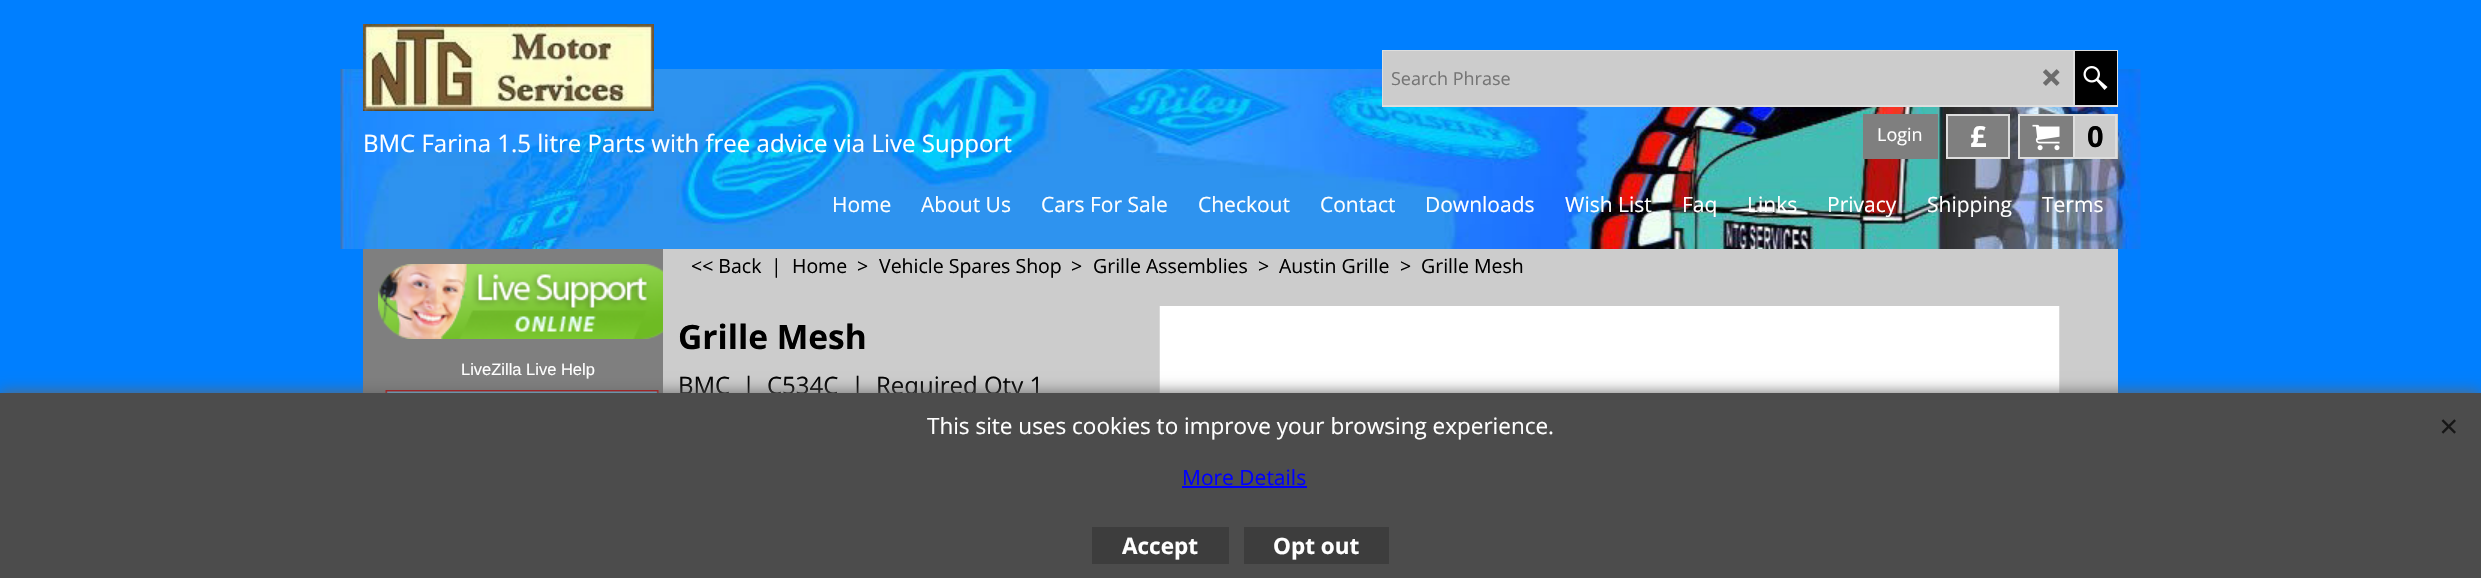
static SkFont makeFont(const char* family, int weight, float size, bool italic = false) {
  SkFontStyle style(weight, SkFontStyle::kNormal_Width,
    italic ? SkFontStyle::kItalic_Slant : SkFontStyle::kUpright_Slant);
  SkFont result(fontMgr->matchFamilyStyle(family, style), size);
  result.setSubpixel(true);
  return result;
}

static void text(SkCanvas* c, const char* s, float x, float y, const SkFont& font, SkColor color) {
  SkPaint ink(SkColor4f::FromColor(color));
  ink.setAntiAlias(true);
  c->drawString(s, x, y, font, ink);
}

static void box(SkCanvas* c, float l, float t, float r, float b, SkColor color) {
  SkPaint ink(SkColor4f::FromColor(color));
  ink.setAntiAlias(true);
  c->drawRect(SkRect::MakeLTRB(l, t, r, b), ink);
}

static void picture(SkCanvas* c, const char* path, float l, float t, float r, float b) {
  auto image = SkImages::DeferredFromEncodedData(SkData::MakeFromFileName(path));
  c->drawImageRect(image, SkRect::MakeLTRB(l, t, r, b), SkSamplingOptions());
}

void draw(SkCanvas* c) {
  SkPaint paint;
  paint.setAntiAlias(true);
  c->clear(0xff007fff);
  picture(c, "img_01.png", 340, 69, 2141, 249);
  picture(c, "img_02.png", 363, 24, 654, 111);
  SkFont face1 = makeFont("Open Sans", 400, 24);
  text(c, "BMC Farina 1.5 litre Parts with free advice via Live Support", 363, 152, face1, 0xffffffff);
  paint.setStyle(SkPaint::kStroke_Style);
  paint.setStrokeWidth(2);
  paint.setColor(0xffdedede);
  c->drawRect(SkRect::MakeLTRB(1383, 51, 2117, 106), paint);
  box(c, 1383, 51, 2073, 105, 0xffcccccc);
  SkFont face2 = makeFont("Open Sans", 400, 18);
  text(c, "Search Phrase", 1391, 85, face2, 0xff757575);
  picture(c, "img_03.png", 2043, 69, 2060, 86);
  box(c, 2075, 51, 2117, 105, 0xff000000);
  box(c, 2073, 51, 2075, 105, 0xffdedede);
  picture(c, "img_04.png", 2083, 66, 2108, 90);
  box(c, 1863, 114, 1938, 159, 0xff7f7f7f);
  text(c, "Login", 1877, 141, face2, 0xffffffff);
  paint.setStyle(SkPaint::kFill_Style);
  paint.setColor(0xff7f7f7f);
  c->drawRect(SkRect::MakeLTRB(1947, 115, 2009, 158), paint);
  paint.setStyle(SkPaint::kStroke_Style);
  paint.setColor(0xffdedede);
  c->drawRect(SkRect::MakeLTRB(1947, 115, 2009, 158), paint);
  SkFont face3 = makeFont("Open Sans", 700, 29);
  text(c, "£", 1970, 147, face3, 0xffffffff);
  box(c, 2075, 114, 2118, 159, 0xffcccccc);
  paint.setStyle(SkPaint::kFill_Style);
  paint.setColor(0xff7f7f7f);
  c->drawRect(SkRect::MakeLTRB(2019, 115, 2074, 158), paint);
  paint.setStyle(SkPaint::kStroke_Style);
  paint.setColor(0xffdedede);
  c->drawRect(SkRect::MakeLTRB(2019, 115, 2074, 158), paint);
  picture(c, "img_05.png", 2032, 124, 2060, 151);
  c->drawRect(SkRect::MakeLTRB(2074, 115, 2116, 158), paint);
  text(c, "0", 2087, 147, face3, 0xff000000);
  SkFont face4 = makeFont("Open Sans", 400, 21);
  text(c, "Home", 832, 212, face4, 0xffffffff);
  text(c, "About Us", 921, 212, face4, 0xffffffff);
  text(c, "Cars For Sale", 1041, 212, face4, 0xffffffff);
  text(c, "Checkout", 1198, 212, face4, 0xffffffff);
  text(c, "Contact", 1320, 212, face4, 0xffffffff);
  text(c, "Downloads", 1425, 212, face4, 0xffffffff);
  text(c, "Wish List", 1565, 212, face4, 0xffffffff);
  text(c, "Faq", 1682, 212, face4, 0xffffffff);
  text(c, "Links", 1747, 212, face4, 0xffffffff);
  text(c, "Privacy", 1827, 212, face4, 0xffffffff);
  text(c, "Shipping", 1927, 212, face4, 0xffffffff);
  text(c, "Terms", 2042, 212, face4, 0xffffffff);
  box(c, 363, 249, 663, 393, 0xff7f7f7f);
  picture(c, "img_06.png", 378, 264, 663, 339);
  SkFont face5 = makeFont("Liberation Sans", 400, 16.5f);
  text(c, "LiveZilla Live Help", 461, 375, face5, 0xffffffff);
  picture(c, "img_07.png", 385, 390, 659, 393);
  box(c, 663, 249, 2118, 393, 0xffcccccc);
  SkFont face6 = makeFont("Open Sans", 400, 19.5f);
  text(c, "<< Back", 691, 273, face6, 0xff000000);
  text(c, "|", 771, 273, face6, 0xff000000);
  text(c, "Home", 792, 273, face6, 0xff000000);
  text(c, ">", 857, 273, face6, 0xff000000);
  text(c, "Vehicle Spares Shop", 879, 273, face6, 0xff000000);
  text(c, ">", 1071, 273, face6, 0xff000000);
  text(c, "Grille Assemblies", 1093, 273, face6, 0xff000000);
  text(c, ">", 1258, 273, face6, 0xff000000);
  text(c, "Austin Grille", 1279, 273, face6, 0xff000000);
  text(c, ">", 1400, 273, face6, 0xff000000);
  text(c, "Grille Mesh", 1421, 273, face6, 0xff000000);
  SkFont face7 = makeFont("Open Sans", 700, 33.5f);
  text(c, "Grille Mesh", 678, 349, face7, 0xff000000);
  text(c, "BMC", 678, 394, face1, 0xff000000);
  text(c, "|", 742, 394, face1, 0xff000000);
  text(c, "C534C", 767, 394, face1, 0xff000000);
  text(c, "|", 851, 394, face1, 0xff000000);
  text(c, "Required Qty 1", 876, 394, face1, 0xff000000);
  picture(c, "img_08.png", 1159, 306, 2060, 393);
  paint.setStyle(SkPaint::kFill_Style);
  paint.setColor(0xff666666);
  paint.setMaskFilter(SkMaskFilter::MakeBlur(kNormal_SkBlurStyle, 7.5f));
  c->drawRect(SkRect::MakeLTRB(0, 393, 2481, 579), paint);
  paint.setMaskFilter(nullptr);
  box(c, 0, 393, 2481, 578, 0xff4c4c4c);
  SkFont face8 = makeFont("Open Sans", 400, 22.5f);
  text(c, "This site uses cookies to improve your browsing experience.", 927, 434, face8, 0xffffffff);
  text(c, "More Details", 1182, 485, face4, 0xff0000ff);
  box(c, 1182, 486, 1307, 488, 0xff0000ff);
  picture(c, "img_09.png", 2441, 419, 2456, 434);
  box(c, 1092, 527, 1229, 564, 0xff3d3d3d);
  SkFont face9 = makeFont("Open Sans", 700, 22.5f);
  text(c, "Accept", 1122, 554, face9, 0xffffffff);
  box(c, 1244, 527, 1389, 564, 0xff3d3d3d);
  text(c, "Opt out", 1273, 554, face9, 0xffffffff);
}
